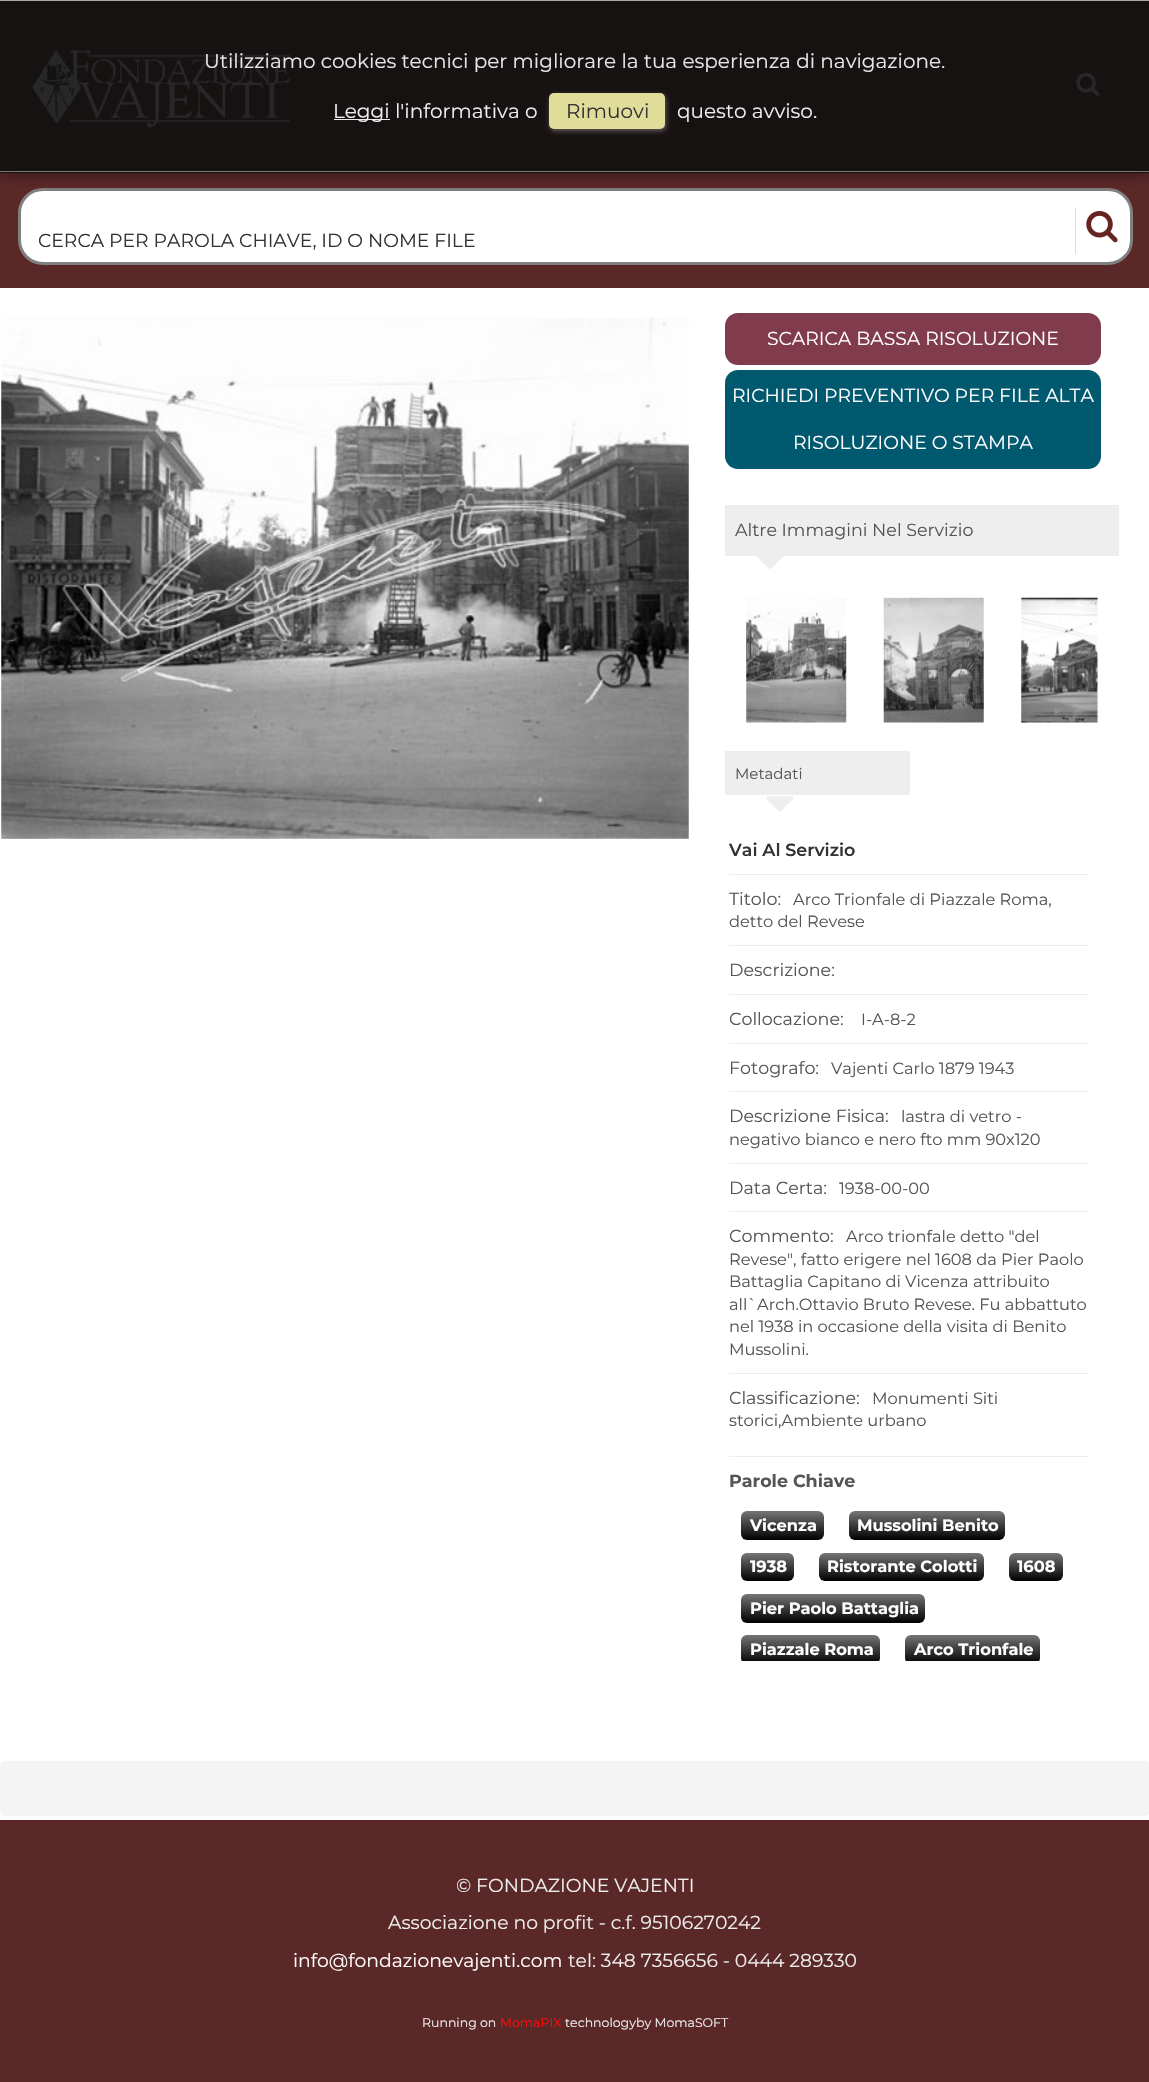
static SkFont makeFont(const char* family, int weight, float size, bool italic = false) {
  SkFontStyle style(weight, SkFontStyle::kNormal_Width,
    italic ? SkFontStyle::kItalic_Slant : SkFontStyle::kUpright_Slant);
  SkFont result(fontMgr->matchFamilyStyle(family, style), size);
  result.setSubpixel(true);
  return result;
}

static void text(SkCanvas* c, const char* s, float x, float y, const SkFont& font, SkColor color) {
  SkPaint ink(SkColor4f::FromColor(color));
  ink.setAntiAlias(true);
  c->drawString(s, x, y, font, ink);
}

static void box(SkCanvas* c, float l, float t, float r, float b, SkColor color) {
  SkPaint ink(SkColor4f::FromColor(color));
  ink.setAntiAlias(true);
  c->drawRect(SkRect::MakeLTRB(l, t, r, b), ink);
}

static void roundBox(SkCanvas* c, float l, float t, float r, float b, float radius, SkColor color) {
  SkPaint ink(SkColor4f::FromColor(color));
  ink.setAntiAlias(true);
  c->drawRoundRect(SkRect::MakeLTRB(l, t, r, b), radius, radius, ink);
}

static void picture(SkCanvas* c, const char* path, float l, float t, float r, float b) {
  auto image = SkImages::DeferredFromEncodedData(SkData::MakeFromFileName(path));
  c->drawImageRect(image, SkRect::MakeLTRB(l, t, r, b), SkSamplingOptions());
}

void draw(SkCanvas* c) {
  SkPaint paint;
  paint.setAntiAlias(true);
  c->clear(0xffffffff);
  box(c, 0, 1, 1149, 288, 0xff5a2827);
  picture(c, "img_01.png", 31, 48, 290, 128);
  picture(c, "img_02.png", 1076, 72, 1100, 97);
  paint.setColor(0xffffffff);
  c->drawRoundRect(SkRect::MakeLTRB(19.5f, 189.5f, 1131.5f, 263.5f), 23.5f, 23.5f, paint);
  paint.setStyle(SkPaint::kStroke_Style);
  paint.setStrokeWidth(3);
  paint.setColor(0xff808080);
  c->drawRoundRect(SkRect::MakeLTRB(19.5f, 189.5f, 1131.5f, 263.5f), 23.5f, 23.5f, paint);
  c->save();
  c->clipPath(SkPathBuilder(SkPathFillType::kEvenOdd).moveTo(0, 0).lineTo(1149, 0).lineTo(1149, 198).lineTo(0, 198).close().moveTo(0, 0).lineTo(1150, 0).lineTo(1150, 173).lineTo(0, 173).close().detach(), true);
  paint.setStyle(SkPaint::kFill_Style);
  paint.setColor(0xff090404);
  paint.setMaskFilter(SkMaskFilter::MakeBlur(kNormal_SkBlurStyle, 9.5f));
  c->drawRect(SkRect::MakeLTRB(0, -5, 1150, 168), paint);
  paint.setMaskFilter(nullptr);
  c->restore();
  box(c, 0, 1, 1149, 173, 0xe610100f);
  box(c, 0, 0, 1149, 1, 0xffaea9a9);
  box(c, 0, 171, 1149, 172, 0xff7c7777);
  SkFont face1 = makeFont("Montserrat", 400, 20);
  text(c, "Utilizziamo cookies tecnici per migliorare la tua esperienza di navigazione.", 204, 68, face1, 0xffe8e7e7);
  box(c, 334, 119, 390, 120, 0xffefeae9);
  text(c, "Leggi l'informativa o", 333, 118, face1, 0xffeeeeee);
  paint.setColor(0xff665858);
  paint.setMaskFilter(SkMaskFilter::MakeBlur(kNormal_SkBlurStyle, 2.5f));
  c->drawRoundRect(SkRect::MakeLTRB(550, 95, 666, 131), 5, 5, paint);
  paint.setMaskFilter(nullptr);
  roundBox(c, 549, 93, 665, 129, 5, 0xffe0dd9b);
  text(c, "Rimuovi", 566, 118, face1, 0xff333333);
  text(c, "questo avviso.", 677, 118, face1, 0xffeeeeee);
  SkFont face2 = makeFont("Montserrat", 400, 18.75f);
  text(c, "CERCA PER PAROLA CHIAVE, ID O NOME FILE", 38, 247, face2, 0xff333333);
  box(c, 1075, 208, 1076, 254, 0xffdddddd);
  c->save();
  c->clipPath(SkPathBuilder().moveTo(43, 190).lineTo(1107, 190).cubicTo(1119.5f, 190, 1130, 200.5f, 1130, 213).lineTo(1130, 240).cubicTo(1130, 252.5f, 1119.5f, 263, 1107, 263).lineTo(43, 263).cubicTo(30.5f, 263, 20, 252.5f, 20, 240).lineTo(20, 213).cubicTo(20, 200.5f, 30.5f, 190, 43, 190).close().detach(), true);
  box(c, 1076, 208, 1129, 254, 0xffffffff);
  c->restore();
  picture(c, "img_03.png", 1086, 211, 1118, 243);
  picture(c, "img_04.png", 1, 317, 689, 839);
  roundBox(c, 725, 313, 1101, 365, 13, 0xff803b4d);
  text(c, "SCARICA BASSA RISOLUZIONE", 767, 345, face2, 0xffffffff);
  roundBox(c, 725, 370, 1101, 469, 13, 0xff01596f);
  text(c, "RICHIEDI PREVENTIVO PER FILE ALTA", 732, 402, face2, 0xffffffff);
  text(c, "RISOLUZIONE O STAMPA", 793, 449, face2, 0xffffffff);
  box(c, 725, 505, 1119, 556, 0xffeeeeee);
  SkFont face3 = makeFont("Montserrat", 400, 17.5f);
  text(c, "Altre Immagini Nel Servizio", 735, 536, face3, 0xff555555);
  picture(c, "img_05.png", 756, 556, 783, 569);
  picture(c, "img_06.png", 746, 598, 847, 723);
  picture(c, "img_07.png", 883, 597, 984, 723);
  picture(c, "img_08.png", 1021, 597, 1098, 723);
  box(c, 725, 751, 910, 795, 0xffeeeeee);
  SkFont face4 = makeFont("Montserrat", 400, 15);
  text(c, "Metadati", 735, 779, face4, 0xff555555);
  picture(c, "img_09.png", 766, 796, 794, 812);
  SkFont face5 = makeFont("Montserrat", 600, 17.5f);
  text(c, "Vai Al Servizio", 729, 856, face5, 0xff333333);
  box(c, 729, 874, 1088, 875, 0xffeeeeee);
  text(c, "Titolo:", 729, 905, face3, 0xff555555);
  SkFont face6 = makeFont("Montserrat", 400, 16.25f);
  text(c, "Arco Trionfale di Piazzale Roma,", 793, 905, face6, 0xff555555);
  text(c, "detto del Revese", 729, 927, face6, 0xff555555);
  box(c, 729, 945, 1088, 946, 0xffeeeeee);
  text(c, "Descrizione:", 729, 976, face3, 0xff555555);
  box(c, 729, 994, 1088, 995, 0xffeeeeee);
  text(c, "Collocazione:", 729, 1025, face3, 0xff555555);
  text(c, "I-A-8-2", 861, 1025, face6, 0xff555555);
  box(c, 729, 1043, 1088, 1044, 0xffeeeeee);
  text(c, "Fotografo:", 729, 1074, face3, 0xff555555);
  text(c, "Vajenti Carlo 1879 1943", 831, 1074, face6, 0xff555555);
  box(c, 729, 1091, 1088, 1092, 0xffeeeeee);
  text(c, "Descrizione Fisica:", 729, 1122, face3, 0xff555555);
  text(c, "lastra di vetro -", 901, 1122, face6, 0xff555555);
  text(c, "negativo bianco e nero fto mm 90x120", 729, 1145, face6, 0xff555555);
  box(c, 729, 1163, 1088, 1164, 0xffeeeeee);
  text(c, "Data Certa:", 729, 1194, face3, 0xff555555);
  text(c, "1938-00-00", 839, 1194, face6, 0xff555555);
  box(c, 729, 1211, 1088, 1212, 0xffeeeeee);
  text(c, "Commento:", 729, 1242, face3, 0xff555555);
  text(c, "Arco trionfale detto \"del", 846, 1242, face6, 0xff555555);
  text(c, "Revese\", fatto erigere nel 1608 da Pier Paolo", 729, 1265, face6, 0xff555555);
  text(c, "Battaglia Capitano di Vicenza attribuito", 729, 1287, face6, 0xff555555);
  text(c, "all`Arch.Ottavio Bruto Revese. Fu abbattuto", 729, 1310, face6, 0xff555555);
  text(c, "nel 1938 in occasione della visita di Benito", 729, 1332, face6, 0xff555555);
  text(c, "Mussolini.", 729, 1355, face6, 0xff555555);
  box(c, 729, 1373, 1088, 1374, 0xffeeeeee);
  text(c, "Classificazione:", 729, 1404, face3, 0xff555555);
  text(c, "Monumenti Siti", 872, 1404, face6, 0xff555555);
  text(c, "storici,Ambiente urbano", 729, 1426, face6, 0xff555555);
  box(c, 729, 1456, 1088, 1457, 0xffeeeeee);
  SkFont face7 = makeFont("Montserrat", 700, 17.5f);
  text(c, "Parole Chiave", 729, 1487, face7, 0xff555555);
  {
    const SkColor colors[] = {0xff777575, 0xff000000};
    const float stops[] = {0, 1};
    const SkPoint ends[] = {{783, 1511}, {783, 1540}};
    paint.setShader(SkGradientShader::MakeLinear(ends, colors, stops, 2, SkTileMode::kClamp));
    paint.setAlpha(255);
  }
  c->drawRoundRect(SkRect::MakeLTRB(741, 1511, 824, 1540), 6, 6, paint);
  SkFont face8 = makeFont("Montserrat", 700, 16.25f);
  text(c, "Vicenza", 750, 1531, face8, 0xffffffff);
  {
    const SkColor colors[] = {0xff777575, 0xff000000};
    const float stops[] = {0, 1};
    const SkPoint ends[] = {{927, 1511}, {927, 1540}};
    paint.setShader(SkGradientShader::MakeLinear(ends, colors, stops, 2, SkTileMode::kClamp));
    paint.setAlpha(255);
  }
  c->drawRoundRect(SkRect::MakeLTRB(849, 1511, 1005, 1540), 6, 6, paint);
  text(c, "Mussolini Benito", 857, 1531, face8, 0xffffffff);
  {
    const SkColor colors[] = {0xff777575, 0xff000000};
    const float stops[] = {0, 1};
    const SkPoint ends[] = {{768, 1553}, {768, 1581}};
    paint.setShader(SkGradientShader::MakeLinear(ends, colors, stops, 2, SkTileMode::kClamp));
    paint.setAlpha(255);
  }
  c->drawRoundRect(SkRect::MakeLTRB(741, 1553, 794, 1581), 6, 6, paint);
  text(c, "1938", 750, 1572, face8, 0xffffffff);
  {
    const SkColor colors[] = {0xff777575, 0xff000000};
    const float stops[] = {0, 1};
    const SkPoint ends[] = {{901, 1553}, {901, 1581}};
    paint.setShader(SkGradientShader::MakeLinear(ends, colors, stops, 2, SkTileMode::kClamp));
    paint.setAlpha(255);
  }
  c->drawRoundRect(SkRect::MakeLTRB(819, 1553, 984, 1581), 6, 6, paint);
  text(c, "Ristorante Colotti", 827, 1572, face8, 0xffffffff);
  {
    const SkColor colors[] = {0xff777575, 0xff000000};
    const float stops[] = {0, 1};
    const SkPoint ends[] = {{1036, 1553}, {1036, 1581}};
    paint.setShader(SkGradientShader::MakeLinear(ends, colors, stops, 2, SkTileMode::kClamp));
    paint.setAlpha(255);
  }
  c->drawRoundRect(SkRect::MakeLTRB(1009, 1553, 1063, 1581), 6, 6, paint);
  text(c, "1608", 1017, 1572, face8, 0xffffffff);
  {
    const SkColor colors[] = {0xff777575, 0xff000000};
    const float stops[] = {0, 1};
    const SkPoint ends[] = {{833, 1594}, {833, 1623}};
    paint.setShader(SkGradientShader::MakeLinear(ends, colors, stops, 2, SkTileMode::kClamp));
    paint.setAlpha(255);
  }
  c->drawRoundRect(SkRect::MakeLTRB(741, 1594, 925, 1623), 6, 6, paint);
  text(c, "Pier Paolo Battaglia", 750, 1614, face8, 0xffffffff);
  c->save();
  c->clipRect(SkRect::MakeLTRB(688, 313, 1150, 1661));
  {
    const SkColor colors[] = {0xff777575, 0xff000000};
    const float stops[] = {0, 1};
    const SkPoint ends[] = {{811, 1635}, {811, 1664}};
    paint.setShader(SkGradientShader::MakeLinear(ends, colors, stops, 2, SkTileMode::kClamp));
    paint.setAlpha(255);
  }
  c->drawRoundRect(SkRect::MakeLTRB(741, 1635, 880, 1664), 6, 6, paint);
  c->restore();
  text(c, "Piazzale Roma", 750, 1655, face8, 0xffffffff);
  c->save();
  c->clipRect(SkRect::MakeLTRB(688, 313, 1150, 1661));
  {
    const SkColor colors[] = {0xff777575, 0xff000000};
    const float stops[] = {0, 1};
    const SkPoint ends[] = {{973, 1635}, {973, 1664}};
    paint.setShader(SkGradientShader::MakeLinear(ends, colors, stops, 2, SkTileMode::kClamp));
    paint.setAlpha(255);
  }
  c->drawRoundRect(SkRect::MakeLTRB(905, 1635, 1040, 1664), 6, 6, paint);
  c->restore();
  text(c, "Arco Trionfale", 914, 1655, face8, 0xffffffff);
  roundBox(c, 0, 1761, 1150, 1816, 5, 0xfff5f4f4);
  box(c, 0, 1820, 1149, 2082, 0xff5a2827);
  text(c, "© FONDAZIONE VAJENTI", 456, 1892, face2, 0xffeeeeee);
  text(c, "Associazione no profit - c.f. 95106270242", 388, 1929, face2, 0xffeeeeee);
  text(c, "info@fondazionevajenti.com", 293, 1967, face2, 0xffffffff);
  text(c, "tel: 348 7356656 - 0444 289330", 568, 1967, face2, 0xffeeeeee);
  SkFont face9 = makeFont("Montserrat", 400, 12.5f);
  text(c, "Running on", 422, 2027, face9, 0xffeeeeee);
  text(c, "MomaPIX", 500, 2027, face9, 0xffff0c0a);
  text(c, "technologyby MomaSOFT", 565, 2027, face9, 0xffeeeeee);
}
